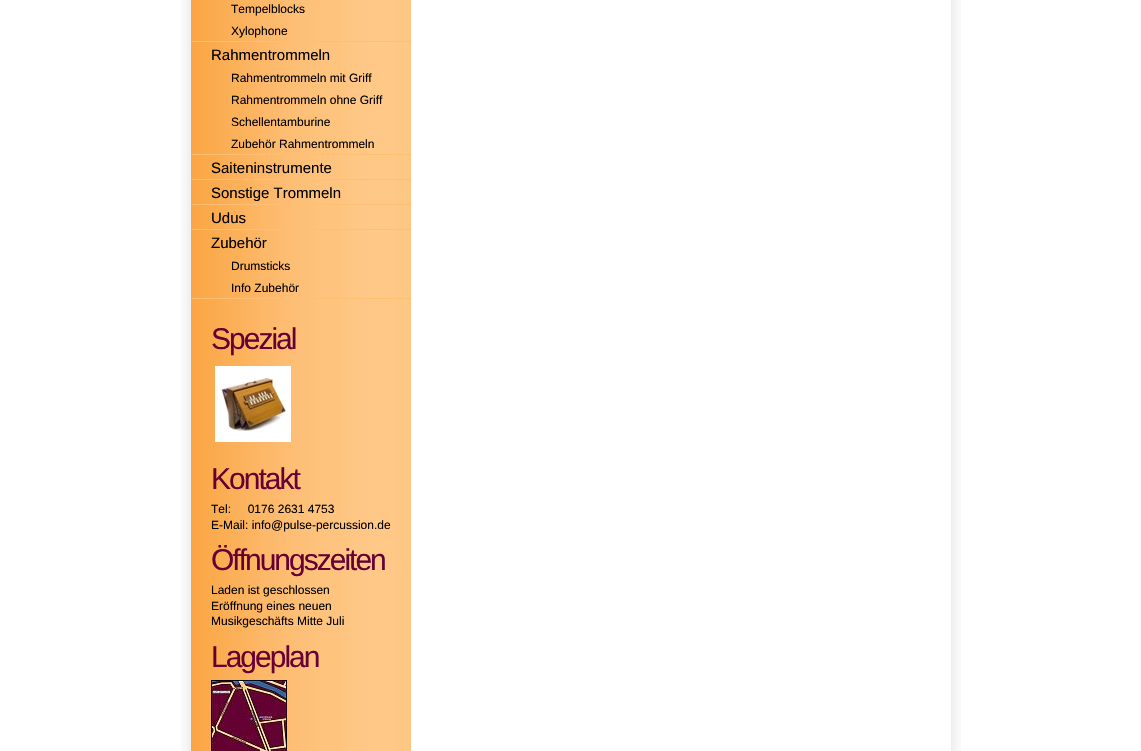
static SkFont makeFont(const char* family, int weight, float size, bool italic = false) {
  SkFontStyle style(weight, SkFontStyle::kNormal_Width,
    italic ? SkFontStyle::kItalic_Slant : SkFontStyle::kUpright_Slant);
  SkFont result(fontMgr->matchFamilyStyle(family, style), size);
  result.setSubpixel(true);
  return result;
}

static void text(SkCanvas* c, const char* s, float x, float y, const SkFont& font, SkColor color) {
  SkPaint ink(SkColor4f::FromColor(color));
  ink.setAntiAlias(true);
  c->drawString(s, x, y, font, ink);
}

static void spacedText(SkCanvas* c, const char* s, float x, float y, const SkFont& font, const SkPaint& ink, float letter, float word) {
  std::vector<SkGlyphID> glyphs(font.countText(s, strlen(s), SkTextEncoding::kUTF8));
  std::vector<float> xs(glyphs.size());
  font.textToGlyphs(s, strlen(s), SkTextEncoding::kUTF8, glyphs);
  font.getXPos(glyphs, xs, x);
  float extra = 0;
  for (size_t i = 0; i < glyphs.size(); i++) {
    xs[i] += extra;
    extra += letter + word * (glyphs[i] == font.unicharToGlyph(' '));
  }
  c->drawTextBlob(SkTextBlob::MakeFromPosHGlyphs(glyphs, xs, y, font), 0, 0, ink);
}

static void picture(SkCanvas* c, const char* path, float l, float t, float r, float b) {
  auto image = SkImages::DeferredFromEncodedData(SkData::MakeFromFileName(path));
  c->drawImageRect(image, SkRect::MakeLTRB(l, t, r, b), SkSamplingOptions());
}

void draw(SkCanvas* c) {
  SkPaint paint;
  paint.setAntiAlias(true);
  c->clear(0xffffffff);
  picture(c, "img_01.png", 181, 0, 961, 751);
  picture(c, "img_02.png", 191, 41, 411, 42);
  SkFont face1 = makeFont("Liberation Sans", 400, 12);
  text(c, "Tempelblocks", 231, 13, face1, 0xff000000);
  text(c, "Xylophone", 231, 35, face1, 0xff000000);
  picture(c, "img_02.png", 191, 154, 411, 155);
  SkFont face2 = makeFont("Liberation Sans", 400, 15);
  text(c, "Rahmentrommeln", 211, 60, face2, 0xff000000);
  text(c, "Rahmentrommeln mit Griff", 231, 82, face1, 0xff000000);
  text(c, "Rahmentrommeln ohne Griff", 231, 104, face1, 0xff000000);
  text(c, "Schellentamburine", 231, 126, face1, 0xff000000);
  text(c, "Zubehör Rahmentrommeln", 231, 148, face1, 0xff000000);
  picture(c, "img_02.png", 191, 179, 411, 180);
  text(c, "Saiteninstrumente", 211, 173, face2, 0xff000000);
  picture(c, "img_02.png", 191, 204, 411, 205);
  text(c, "Sonstige Trommeln", 211, 198, face2, 0xff000000);
  picture(c, "img_02.png", 191, 229, 411, 230);
  text(c, "Udus", 211, 223, face2, 0xff000000);
  picture(c, "img_02.png", 191, 298, 411, 299);
  text(c, "Zubehör", 211, 248, face2, 0xff000000);
  text(c, "Drumsticks", 231, 270, face1, 0xff000000);
  text(c, "Info Zubehör", 231, 292, face1, 0xff000000);
  SkFont face3 = makeFont("Liberation Sans", 400, 30);
  paint.setColor(0xff670034);
  spacedText(c, "Spezial", 211, 349, face3, paint, -2, 0);
  picture(c, "img_03.png", 215, 366, 291, 442);
  spacedText(c, "Kontakt", 211, 489, face3, paint, -2, 0);
  text(c, "Tel:     0176 2631 4753", 211, 513, face1, 0xff000000);
  text(c, "E-Mail: info@pulse-percussion.de", 211, 529, face1, 0xff000000);
  spacedText(c, "Öffnungszeiten", 211, 570, face3, paint, -2, 0);
  text(c, "Laden ist geschlossen", 211, 594, face1, 0xff000000);
  text(c, "Eröffnung eines neuen", 211, 610, face1, 0xff000000);
  text(c, "Musikgeschäfts Mitte Juli", 211, 625, face1, 0xff000000);
  spacedText(c, "Lageplan", 211, 667, face3, paint, -2, 0);
  picture(c, "img_04.png", 211, 680, 287, 751);
}
